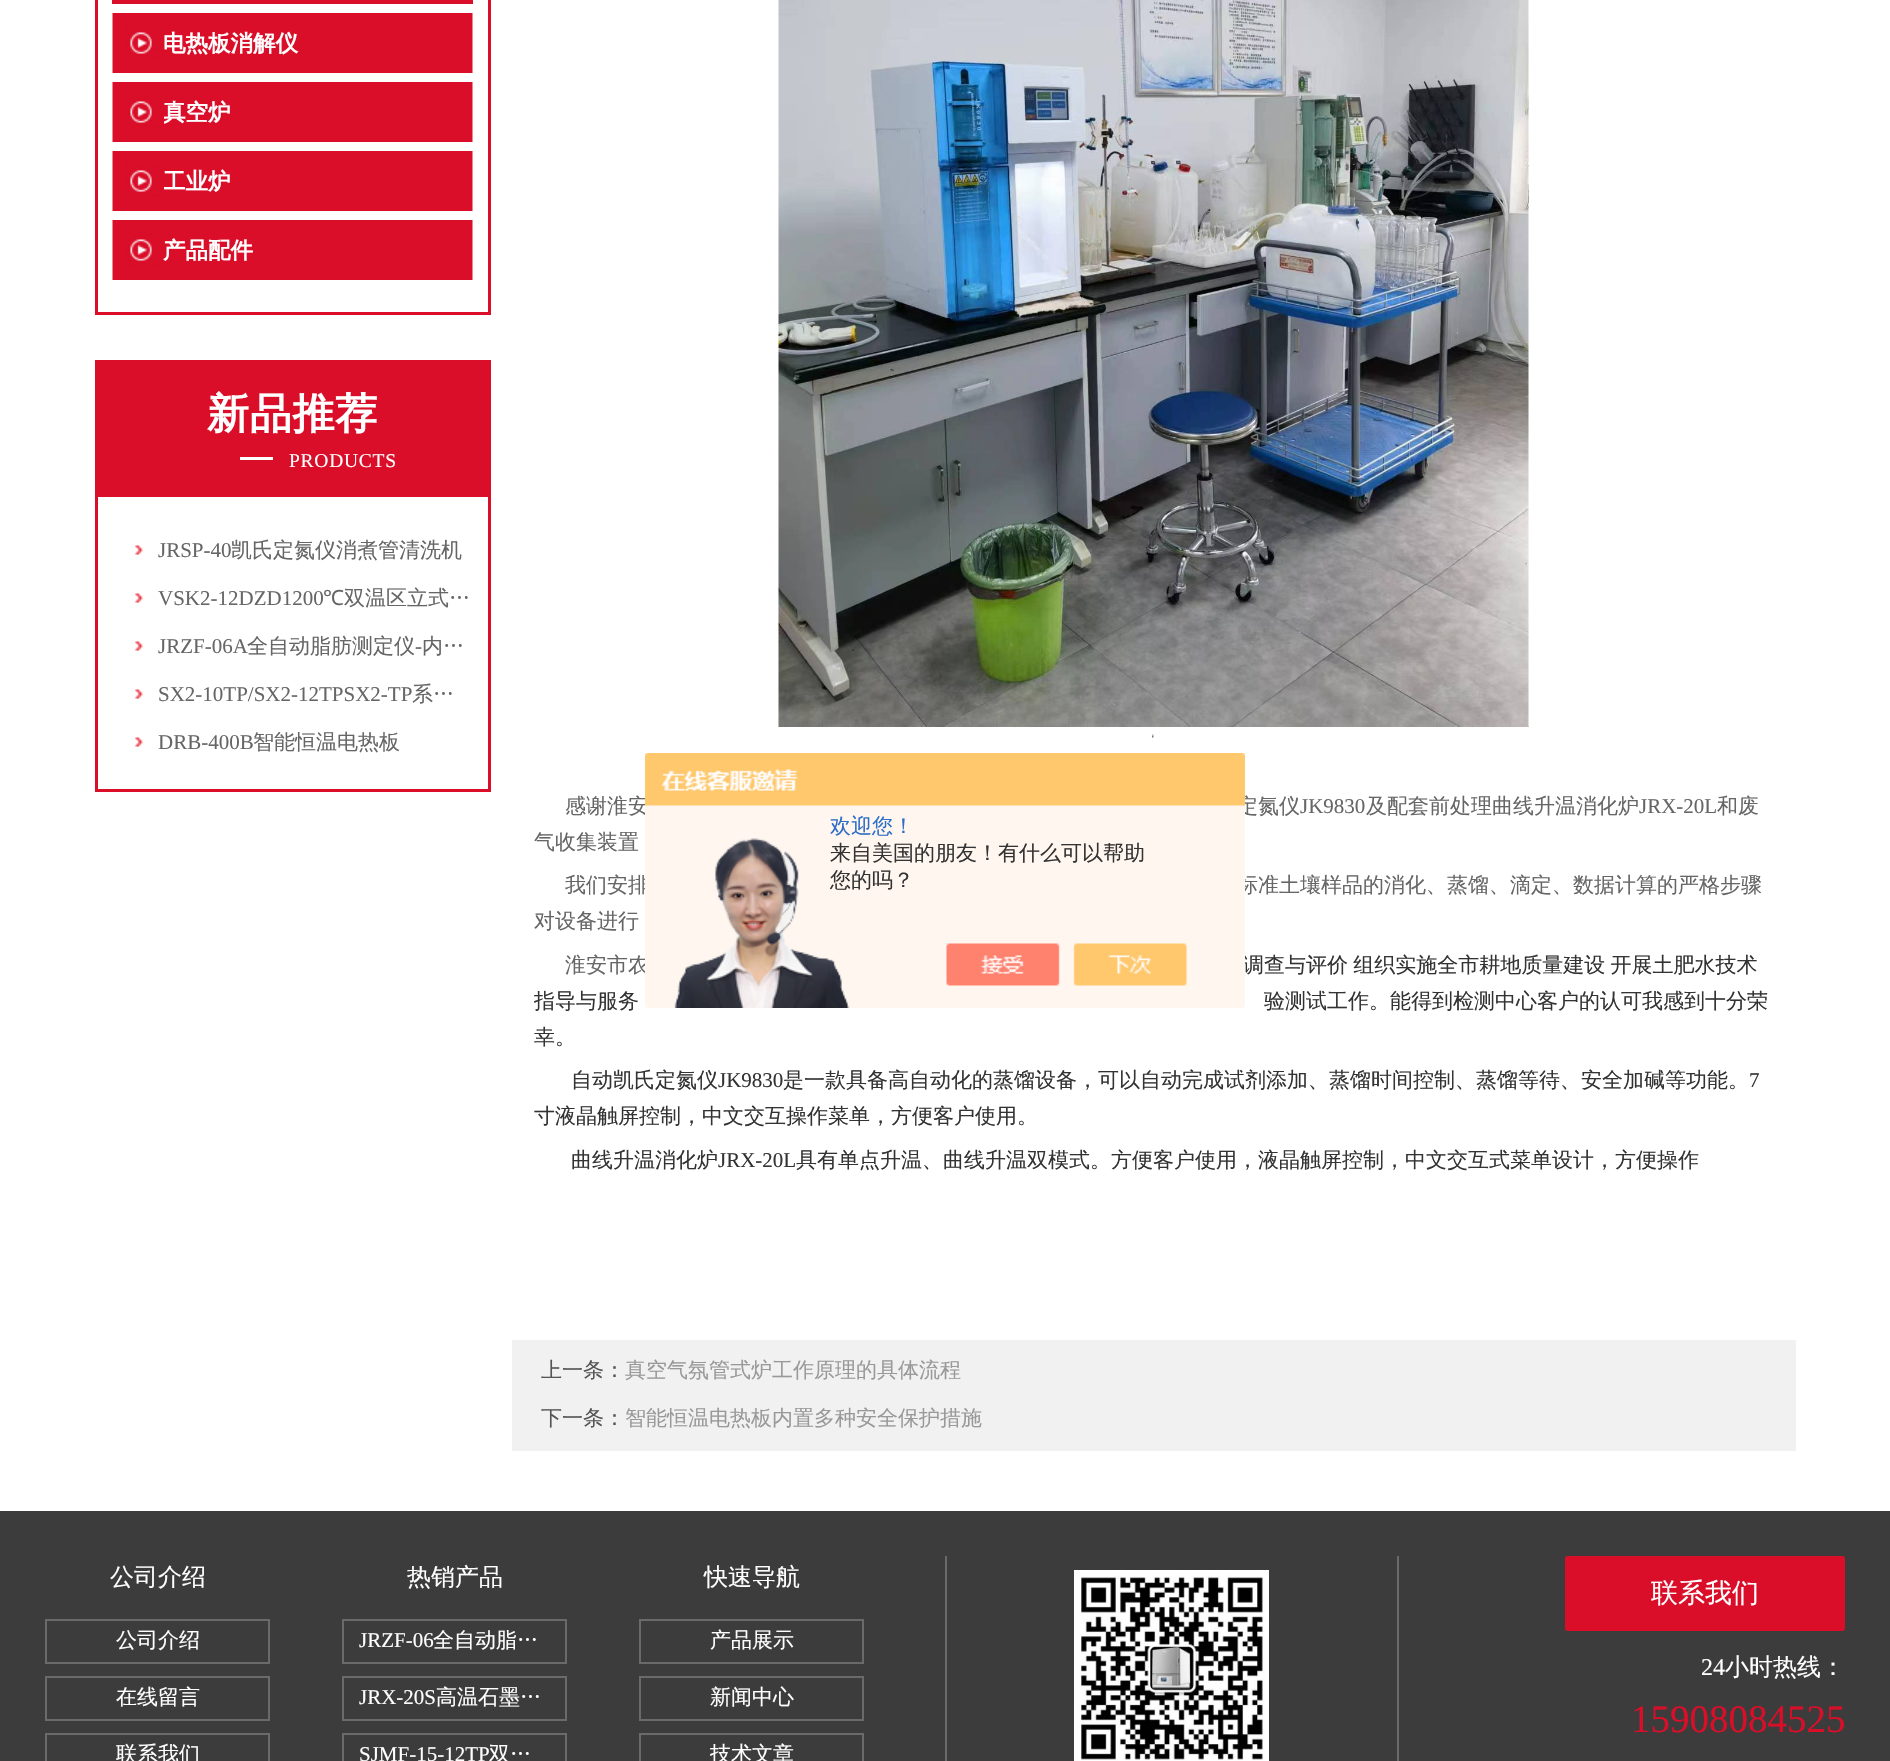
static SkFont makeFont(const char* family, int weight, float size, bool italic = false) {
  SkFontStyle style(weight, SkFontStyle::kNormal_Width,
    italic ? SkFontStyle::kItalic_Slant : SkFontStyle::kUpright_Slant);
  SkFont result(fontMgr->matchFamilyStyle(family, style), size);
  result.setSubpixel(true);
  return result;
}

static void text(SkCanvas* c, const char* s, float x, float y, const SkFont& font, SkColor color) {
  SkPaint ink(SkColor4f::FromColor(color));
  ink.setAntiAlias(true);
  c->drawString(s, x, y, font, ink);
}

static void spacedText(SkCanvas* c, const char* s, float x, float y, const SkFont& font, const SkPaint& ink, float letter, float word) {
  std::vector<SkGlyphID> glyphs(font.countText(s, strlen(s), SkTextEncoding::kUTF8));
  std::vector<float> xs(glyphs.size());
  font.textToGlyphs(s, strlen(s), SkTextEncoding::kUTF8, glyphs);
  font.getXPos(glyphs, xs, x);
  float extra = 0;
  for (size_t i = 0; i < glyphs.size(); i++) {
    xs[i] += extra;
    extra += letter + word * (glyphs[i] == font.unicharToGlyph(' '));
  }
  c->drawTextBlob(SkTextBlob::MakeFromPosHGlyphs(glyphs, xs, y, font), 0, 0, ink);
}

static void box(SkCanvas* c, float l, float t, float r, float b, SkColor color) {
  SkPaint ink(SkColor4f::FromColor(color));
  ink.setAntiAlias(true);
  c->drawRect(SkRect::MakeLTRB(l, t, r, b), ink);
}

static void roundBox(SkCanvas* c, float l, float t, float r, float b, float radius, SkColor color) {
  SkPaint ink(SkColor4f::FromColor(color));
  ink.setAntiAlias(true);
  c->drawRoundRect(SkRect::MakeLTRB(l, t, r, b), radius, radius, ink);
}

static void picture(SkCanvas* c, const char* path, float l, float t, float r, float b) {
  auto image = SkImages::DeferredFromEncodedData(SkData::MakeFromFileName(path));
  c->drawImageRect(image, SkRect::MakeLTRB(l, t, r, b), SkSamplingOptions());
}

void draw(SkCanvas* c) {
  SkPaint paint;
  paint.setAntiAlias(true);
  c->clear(0xffffffff);
  paint.setStyle(SkPaint::kStroke_Style);
  paint.setStrokeWidth(3);
  paint.setColor(0xffda0e29);
  c->drawRect(SkRect::MakeLTRB(96.5f, -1.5f, 489.5f, 313.5f), paint);
  box(c, 112, 0, 473, 4, 0xffda0e29);
  picture(c, "img_01.png", 112, 13, 473, 73);
  SkFont face1 = makeFont("WenQuanYi Zen Hei", 700, 22.5f);
  text(c, "电热板消解仪", 163, 51, face1, 0xffffffff);
  picture(c, "img_01.png", 112, 82, 473, 142);
  c->save();
  c->clipRect(SkRect::MakeLTRB(164, 83, 473, 143));
  text(c, "真空炉", 163, 120, face1, 0xffffffff);
  c->restore();
  picture(c, "img_01.png", 112, 151, 473, 211);
  c->save();
  c->clipRect(SkRect::MakeLTRB(164, 152, 473, 212));
  text(c, "工业炉", 163, 189, face1, 0xffffffff);
  c->restore();
  picture(c, "img_01.png", 112, 220, 473, 280);
  text(c, "产品配件", 163, 258, face1, 0xffffffff);
  c->drawRect(SkRect::MakeLTRB(96.5f, 361.5f, 489.5f, 790.5f), paint);
  box(c, 98, 363, 488, 497, 0xffda0e29);
  box(c, 240, 457, 273, 460, 0xffffffff);
  SkFont face2 = makeFont("WenQuanYi Zen Hei", 700, 42);
  paint.setStyle(SkPaint::kFill_Style);
  paint.setColor(0xffffffff);
  spacedText(c, "新品推荐", 207, 428, face2, paint, 0.75f, 0);
  SkFont face3 = makeFont("Liberation Serif", 400, 19.5f);
  spacedText(c, "PRODUCTS", 289, 467, face3, paint, 0.75f, 0);
  picture(c, "img_02.png", 135, 545, 143, 555);
  SkFont face4 = makeFont("Liberation Serif", 400, 21);
  text(c, "JRSP-40", 158, 557, face4, 0xff666666);
  SkFont face5 = makeFont("WenQuanYi Zen Hei", 500, 21);
  text(c, "凯氏定氮仪消煮管清洗机", 231, 557, face5, 0xff666666);
  picture(c, "img_02.png", 135, 593, 143, 603);
  text(c, "VSK2-12DZD1200", 158, 605, face4, 0xff666666);
  SkFont face6 = makeFont("Noto Sans", 400, 21);
  text(c, "℃", 323, 605, face6, 0xff666666);
  text(c, "双温区立式…", 344, 605, face5, 0xff666666);
  picture(c, "img_02.png", 135, 641, 143, 651);
  text(c, "JRZF-06A", 158, 653, face4, 0xff666666);
  text(c, "全自动脂肪测定仪", 247, 653, face5, 0xff666666);
  text(c, "-", 415, 653, face4, 0xff666666);
  text(c, "内…", 422, 653, face5, 0xff666666);
  picture(c, "img_02.png", 135, 689, 143, 699);
  text(c, "SX2-10TP/SX2-12TPSX2-TP", 158, 701, face4, 0xff666666);
  text(c, "系…", 412, 701, face5, 0xff666666);
  picture(c, "img_02.png", 135, 737, 143, 747);
  text(c, "DRB-400B", 158, 749, face4, 0xff666666);
  text(c, "智能恒温电热板", 253, 749, face5, 0xff666666);
  picture(c, "img_03.png", 778, 0, 1529, 727);
  picture(c, "img_04.png", 1152, 734, 1154, 738);
  text(c, "感谢淮安", 565, 813, face5, 0xff666666);
  text(c, "定氮仪", 1237, 813, face5, 0xff666666);
  text(c, "JK9830", 1300, 813, face4, 0xff666666);
  text(c, "及配套前处理曲线升温消化炉", 1366, 813, face5, 0xff666666);
  text(c, "JRX-20L", 1639, 813, face4, 0xff666666);
  text(c, "和废", 1717, 813, face5, 0xff666666);
  text(c, "气收集装置", 534, 849, face5, 0xff666666);
  text(c, "我们安排", 565, 892, face5, 0xff666666);
  text(c, "标准土壤样品的消化、蒸馏、滴定、数据计算的严格步骤", 1237, 892, face5, 0xff666666);
  text(c, "对设备进行", 534, 928, face5, 0xff666666);
  text(c, "淮安市农", 565, 972, face5, 0xff666666);
  paint.setColor(0xff333333);
  spacedText(c, "调查与评价 组织实施全市耕地质量建设 开展土肥水技术", 1243, 972, face5, paint, 0, -1);
  spacedText(c, "指导与服务", 534, 1008, face5, paint, 0, -1);
  spacedText(c, "验测试工作。能得到检测中心客户的认可我感到十分荣", 1264, 1008, face5, paint, 0, -1);
  text(c, "幸。", 534, 1044, face5, 0xff333333);
  text(c, "自动凯氏定氮仪", 571, 1087, face5, 0xff333333);
  text(c, "JK9830", 718, 1087, face4, 0xff333333);
  text(c, "是一款具备高自动化的蒸馏设备，可以自动完成试剂添加、蒸馏时间控制、蒸馏等待、安全加碱等功能。", 783, 1087, face5, 0xff333333);
  text(c, "7", 1749, 1087, face4, 0xff333333);
  text(c, "寸液晶触屏控制，中文交互操作菜单，方便客户使用。", 534, 1123, face5, 0xff333333);
  text(c, "曲线升温消化炉", 571, 1167, face5, 0xff333333);
  text(c, "JRX-20L", 718, 1167, face4, 0xff333333);
  text(c, "具有单点升温、曲线升温双模式。方便客户使用，液晶触屏控制，中文交互式菜单设计，方便操作", 796, 1167, face5, 0xff333333);
  box(c, 512, 1340, 1796, 1451, 0xfff1f1f1);
  text(c, "上一条：", 541, 1377, face5, 0xff555555);
  text(c, "真空气氛管式炉工作原理的具体流程", 625, 1377, face5, 0xff999999);
  text(c, "下一条：", 541, 1425, face5, 0xff555555);
  text(c, "智能恒温电热板内置多种安全保护措施", 625, 1425, face5, 0xff999999);
  picture(c, "img_05.png", 645, 753, 1245, 1008);
  text(c, "欢迎您！", 830, 833, face5, 0xff2e6ec6);
  text(c, "来自美国的朋友！有什么可以帮助", 830, 860, face5, 0xff333333);
  text(c, "您的吗？", 830, 887, face5, 0xff333333);
  box(c, 0, 1511, 1890, 1761, 0xff3c3c3c);
  SkFont face7 = makeFont("WenQuanYi Zen Hei", 500, 24);
  text(c, "公司介绍", 110, 1585, face7, 0xffffffff);
  paint.setStyle(SkPaint::kStroke_Style);
  paint.setStrokeWidth(2);
  paint.setColor(0xff6a6a6a);
  c->drawRect(SkRect::MakeLTRB(46, 1620, 269, 1663), paint);
  text(c, "公司介绍", 116, 1647, face5, 0xffffffff);
  c->drawRect(SkRect::MakeLTRB(46, 1677, 269, 1720), paint);
  text(c, "在线留言", 116, 1704, face5, 0xffffffff);
  c->drawRect(SkRect::MakeLTRB(46, 1734, 269, 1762), paint);
  text(c, "联系我们", 116, 1761, face5, 0xffffffff);
  text(c, "热销产品", 407, 1585, face7, 0xffffffff);
  c->drawRect(SkRect::MakeLTRB(343, 1620, 566, 1663), paint);
  text(c, "JRZF-06", 359, 1647, face4, 0xffffffff);
  text(c, "全自动脂…", 433, 1647, face5, 0xffffffff);
  c->drawRect(SkRect::MakeLTRB(343, 1677, 566, 1720), paint);
  text(c, "JRX-20S", 359, 1704, face4, 0xffffffff);
  text(c, "高温石墨…", 436, 1704, face5, 0xffffffff);
  c->drawRect(SkRect::MakeLTRB(343, 1734, 566, 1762), paint);
  text(c, "SJMF-15-12TP", 359, 1761, face4, 0xffffffff);
  text(c, "双…", 489, 1761, face5, 0xffffffff);
  text(c, "快速导航", 704, 1585, face7, 0xffffffff);
  c->drawRect(SkRect::MakeLTRB(640, 1620, 863, 1663), paint);
  text(c, "产品展示", 710, 1647, face5, 0xffffffff);
  c->drawRect(SkRect::MakeLTRB(640, 1677, 863, 1720), paint);
  text(c, "新闻中心", 710, 1704, face5, 0xffffffff);
  c->drawRect(SkRect::MakeLTRB(640, 1734, 863, 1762), paint);
  text(c, "技术文章", 710, 1761, face5, 0xffffffff);
  box(c, 1397, 1556, 1399, 1761, 0xff6a6a6a);
  box(c, 945, 1556, 947, 1761, 0xff6a6a6a);
  picture(c, "img_06.png", 1074, 1570, 1269, 1761);
  roundBox(c, 1565, 1556, 1845, 1631, 3, 0xffda0e29);
  SkFont face8 = makeFont("WenQuanYi Zen Hei", 500, 27);
  text(c, "联系我们", 1651, 1602, face8, 0xffffffff);
  SkFont face9 = makeFont("Liberation Serif", 400, 24);
  text(c, "24", 1701, 1675, face9, 0xffffffff);
  text(c, "小时热线：", 1725, 1675, face7, 0xffffffff);
  SkFont face10 = makeFont("Liberation Serif", 400, 39);
  text(c, "15908084525", 1631, 1732, face10, 0xffda0e29);
}
